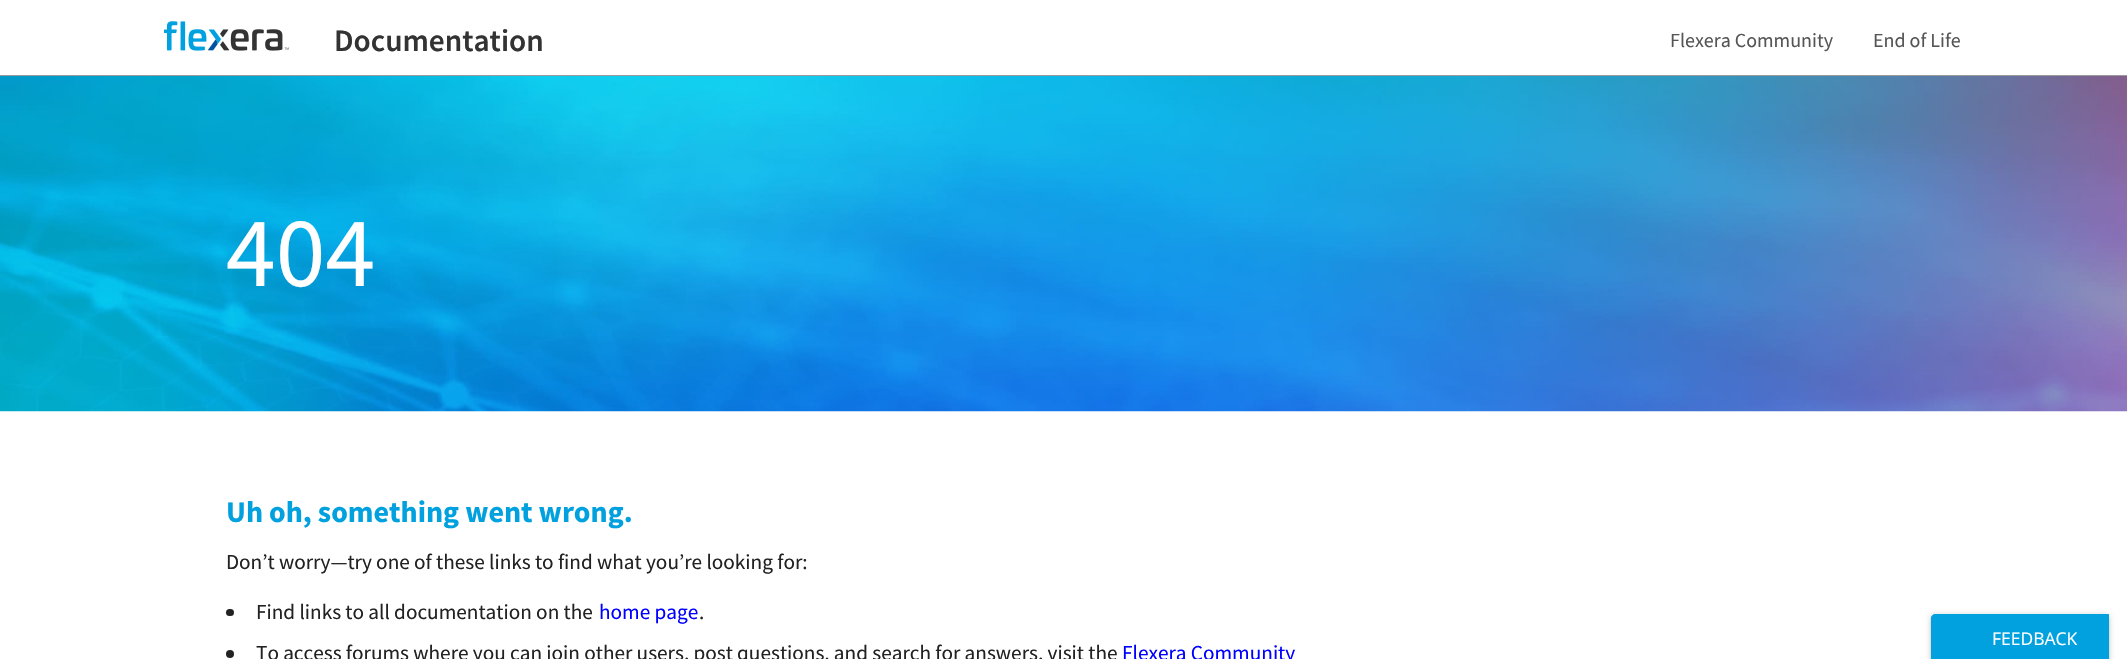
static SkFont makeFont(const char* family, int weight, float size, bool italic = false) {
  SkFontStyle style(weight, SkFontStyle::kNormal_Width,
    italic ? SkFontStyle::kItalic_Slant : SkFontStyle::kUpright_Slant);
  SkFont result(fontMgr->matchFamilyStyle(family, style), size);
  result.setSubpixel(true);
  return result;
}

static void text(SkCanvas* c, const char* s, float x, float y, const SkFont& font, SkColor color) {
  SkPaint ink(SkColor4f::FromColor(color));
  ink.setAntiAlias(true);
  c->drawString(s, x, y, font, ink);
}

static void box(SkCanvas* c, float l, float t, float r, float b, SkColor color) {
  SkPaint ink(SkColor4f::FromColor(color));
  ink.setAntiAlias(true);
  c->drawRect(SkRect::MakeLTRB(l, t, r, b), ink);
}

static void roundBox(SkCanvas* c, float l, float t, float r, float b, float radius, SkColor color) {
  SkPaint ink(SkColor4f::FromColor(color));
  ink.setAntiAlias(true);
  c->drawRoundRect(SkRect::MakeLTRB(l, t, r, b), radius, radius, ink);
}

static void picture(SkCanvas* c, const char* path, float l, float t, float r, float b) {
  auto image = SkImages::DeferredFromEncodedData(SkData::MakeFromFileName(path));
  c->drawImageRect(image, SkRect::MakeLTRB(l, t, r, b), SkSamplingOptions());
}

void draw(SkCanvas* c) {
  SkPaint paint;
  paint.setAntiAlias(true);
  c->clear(0xffffffff);
  box(c, 0, 75, 2127, 76, 0xff9a9b9c);
  picture(c, "img_01.png", 164, 21, 289, 51);
  SkFont face1 = makeFont("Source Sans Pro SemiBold", 600, 31.25f);
  text(c, "Documentation", 334, 51, face1, 0xff333333);
  SkFont face2 = makeFont("Source Sans Pro", 400, 20);
  text(c, "Flexera Community", 1670, 47, face2, 0xff555555);
  text(c, "End of Life", 1873, 47, face2, 0xff555555);
  picture(c, "img_02.png", 0, 76, 2127, 412);
  SkFont face3 = makeFont("Source Sans Pro", 400, 100);
  text(c, "404", 226, 286, face3, 0xffffffff);
  SkFont face4 = makeFont("Source Sans Pro", 700, 30);
  text(c, "Uh oh, something went wrong.", 226, 522, face4, 0xff00a1de);
  SkFont face5 = makeFont("Source Sans Pro", 400, 21.25f);
  text(c, "Don’t worry—try one of these links to find what you’re looking for:", 226, 569, face5, 0xff222222);
  roundBox(c, 226, 609, 234, 616, 3.5f, 0xff222222);
  text(c, "Find links to all documentation on the", 256, 619, face5, 0xff222222);
  text(c, "home page", 599, 619, face5, 0xff0000ff);
  text(c, ".", 699, 619, face5, 0xff222222);
  paint.setColor(0xff222222);
  c->drawCircle(230, 654, 4, paint);
  text(c, "To access forums where you can join other users, post questions, and search for answers, visit the", 256, 660, face5, 0xff222222);
  text(c, "Flexera Community", 1122, 660, face5, 0xff0000ff);
  paint.setColor(0x33000000);
  paint.setMaskFilter(SkMaskFilter::MakeBlur(kNormal_SkBlurStyle, 3));
  c->drawRoundRect(SkRect::MakeLTRB(1931, 615, 2109, 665), 4, 4, paint);
  paint.setMaskFilter(nullptr);
  paint.setColor(0x24000000);
  paint.setMaskFilter(SkMaskFilter::MakeBlur(kNormal_SkBlurStyle, 1));
  c->drawRoundRect(SkRect::MakeLTRB(1931, 616, 2109, 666), 4, 4, paint);
  paint.setMaskFilter(nullptr);
  paint.setColor(0xff00a1de);
  c->drawPath(SkPathBuilder().moveTo(1935, 614.5f).lineTo(2108.5f, 614.5f).lineTo(2108.5f, 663.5f).lineTo(1931.5f, 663.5f).lineTo(1931.5f, 618).cubicTo(1931.5f, 616, 1933, 614.5f, 1935, 614.5f).close().detach(), paint);
  paint.setStyle(SkPaint::kStroke_Style);
  paint.setStrokeWidth(1);
  c->drawPath(SkPathBuilder().moveTo(1935, 614.5f).lineTo(2108.5f, 614.5f).lineTo(2108.5f, 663.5f).lineTo(1931.5f, 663.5f).lineTo(1931.5f, 618).cubicTo(1931.5f, 616, 1933, 614.5f, 1935, 614.5f).close().detach(), paint);
  SkFont face6 = makeFont("Open Sans", 400, 17.5f);
  text(c, "FEEDBACK", 1992, 645, face6, 0xffffffff);
}
